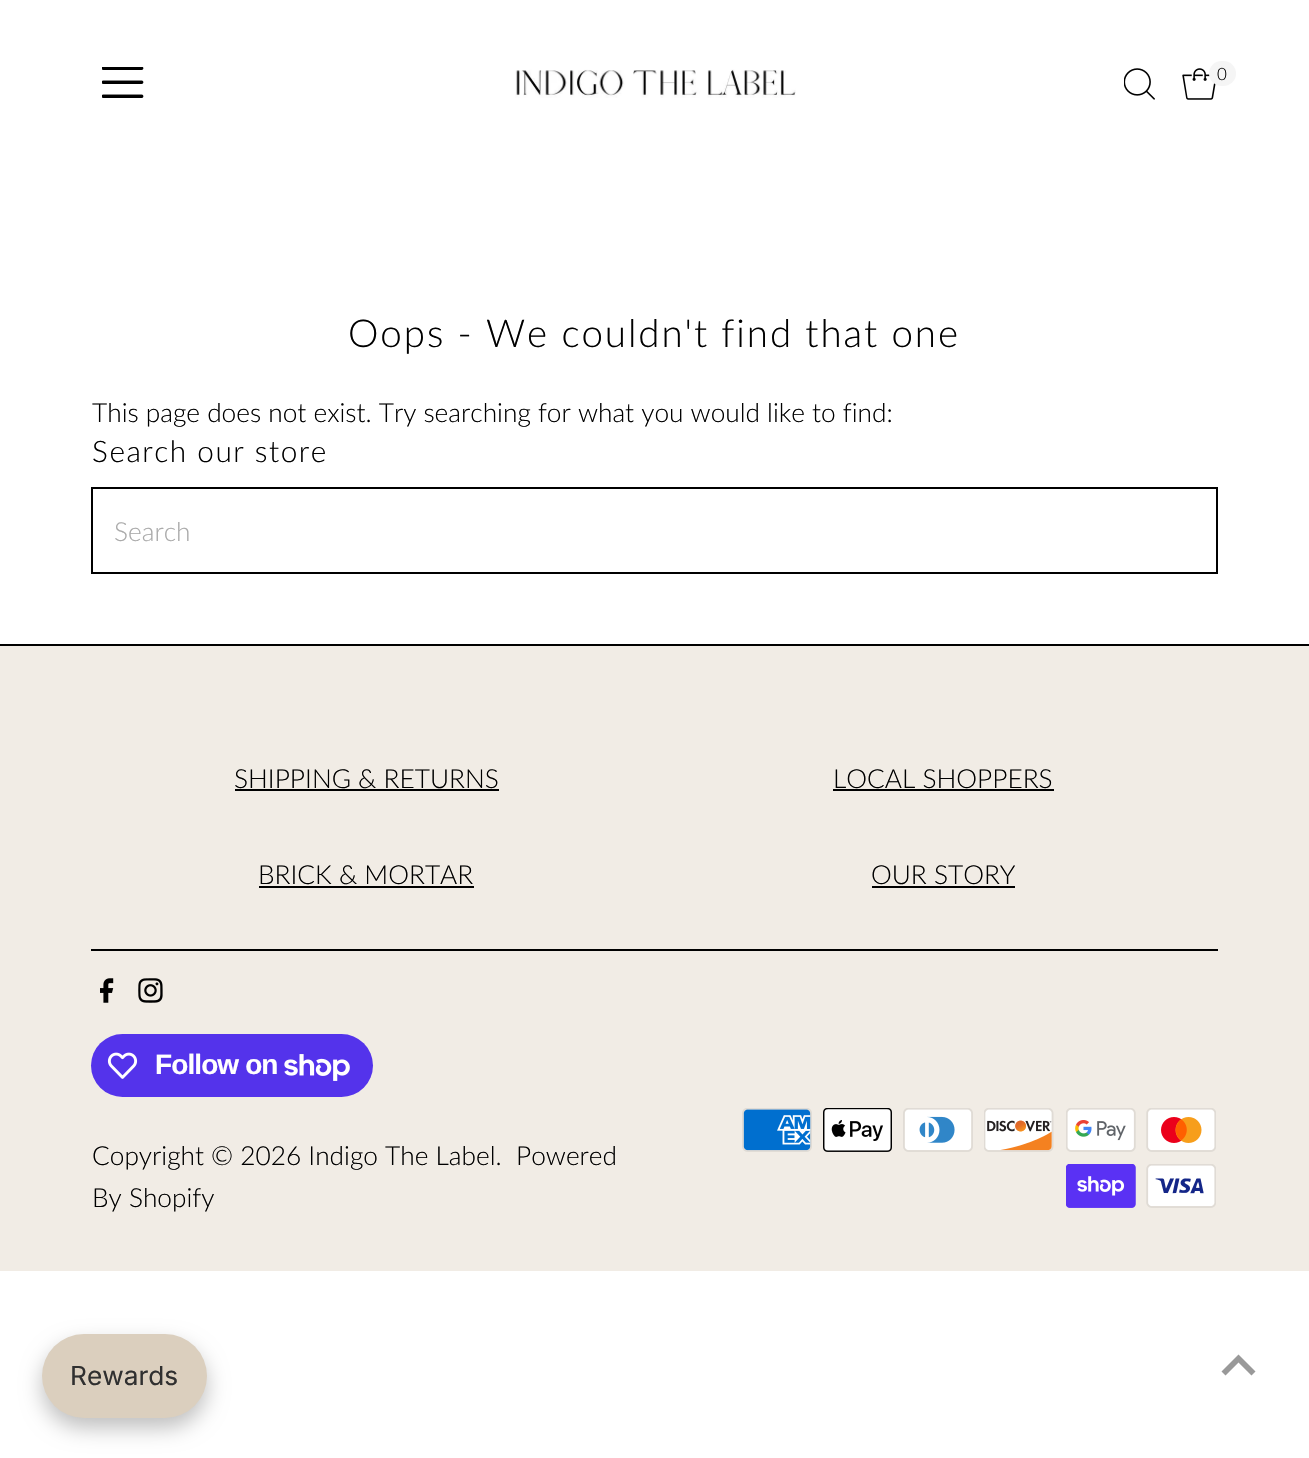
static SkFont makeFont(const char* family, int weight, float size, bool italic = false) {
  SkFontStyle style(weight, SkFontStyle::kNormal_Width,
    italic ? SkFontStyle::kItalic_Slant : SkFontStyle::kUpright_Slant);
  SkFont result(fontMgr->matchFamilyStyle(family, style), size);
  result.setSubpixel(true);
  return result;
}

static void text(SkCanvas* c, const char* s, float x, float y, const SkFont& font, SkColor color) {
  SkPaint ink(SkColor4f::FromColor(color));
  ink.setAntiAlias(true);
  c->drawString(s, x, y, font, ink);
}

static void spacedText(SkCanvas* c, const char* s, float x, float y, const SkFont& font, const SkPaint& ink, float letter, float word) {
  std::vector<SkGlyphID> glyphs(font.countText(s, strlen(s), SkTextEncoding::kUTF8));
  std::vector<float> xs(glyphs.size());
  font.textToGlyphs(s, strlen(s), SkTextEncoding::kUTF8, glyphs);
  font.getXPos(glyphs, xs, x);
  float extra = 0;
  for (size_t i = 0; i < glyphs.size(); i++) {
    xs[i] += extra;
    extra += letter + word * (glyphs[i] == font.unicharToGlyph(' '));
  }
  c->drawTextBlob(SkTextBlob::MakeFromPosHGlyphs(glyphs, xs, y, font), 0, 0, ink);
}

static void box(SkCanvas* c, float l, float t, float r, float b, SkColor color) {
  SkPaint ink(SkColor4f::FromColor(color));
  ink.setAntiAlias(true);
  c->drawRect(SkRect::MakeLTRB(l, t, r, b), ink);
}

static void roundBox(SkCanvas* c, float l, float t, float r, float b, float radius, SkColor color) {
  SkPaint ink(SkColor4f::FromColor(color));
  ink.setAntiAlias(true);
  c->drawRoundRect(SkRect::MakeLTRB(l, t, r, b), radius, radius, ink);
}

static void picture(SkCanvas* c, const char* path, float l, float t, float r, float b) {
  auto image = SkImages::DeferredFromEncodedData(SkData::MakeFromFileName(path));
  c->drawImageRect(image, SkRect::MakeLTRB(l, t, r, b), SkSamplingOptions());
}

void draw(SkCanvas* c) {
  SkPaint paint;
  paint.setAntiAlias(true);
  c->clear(0xffffffff);
  picture(c, "img_01.png", 102, 67, 144, 98);
  picture(c, "img_02.png", 515, 69, 796, 98);
  picture(c, "img_03.png", 1124, 68, 1155, 100);
  picture(c, "img_04.png", 1182, 68, 1216, 100);
  roundBox(c, 1209, 61, 1236, 86, 12.5f, 0xfff5f5f5);
  SkFont face1 = makeFont("Lato", 300, 17);
  text(c, "0", 1217, 80, face1, 0xff000000);
  SkFont face2 = makeFont("Lato", 300, 38.5f);
  paint.setColor(0xff000000);
  spacedText(c, "Oops - We couldn't find that one", 348, 347, face2, paint, 1.9f, 0);
  SkFont face3 = makeFont("Lato", 300, 26.25f);
  text(c, "This page does not exist. Try searching for what you would like to find:", 92, 422, face3, 0xff000000);
  SkFont face4 = makeFont("Lato", 300, 29.75f);
  spacedText(c, "Search our store", 92, 462, face4, paint, 1.5f, 0);
  paint.setStyle(SkPaint::kStroke_Style);
  paint.setStrokeWidth(2);
  c->drawRect(SkRect::MakeLTRB(92, 488, 1217, 573), paint);
  text(c, "Search", 114, 541, face3, 0xffaaaaaa);
  box(c, 0, 646, 1309, 1271, 0xfff1ece5);
  box(c, 0, 644, 1309, 646, 0xff000000);
  text(c, "SHIPPING & RETURNS", 234, 788, face3, 0xff000000);
  box(c, 235, 789, 499, 791, 0xff000000);
  text(c, "LOCAL SHOPPERS", 833, 788, face3, 0xff000000);
  box(c, 833, 789, 1054, 791, 0xff000000);
  text(c, "BRICK & MORTAR", 258, 884, face3, 0xff000000);
  box(c, 259, 886, 474, 888, 0xff000000);
  text(c, "OUR STORY", 871, 884, face3, 0xff000000);
  box(c, 872, 886, 1015, 888, 0xff000000);
  box(c, 91, 949, 1218, 951, 0xff000000);
  picture(c, "img_05.png", 100, 978, 114, 1003);
  picture(c, "img_06.png", 138, 978, 163, 1003);
  roundBox(c, 91, 1034, 373, 1097, 31.5f, 0xff5433eb);
  picture(c, "img_07.png", 107, 1052, 138, 1079);
  SkFont face5 = makeFont("Liberation Sans", 700, 28);
  paint.setStyle(SkPaint::kFill_Style);
  paint.setColor(0xffffffff);
  spacedText(c, "Follow on", 155, 1074, face5, paint, -0.9f, 0);
  picture(c, "img_08.png", 284, 1054, 350, 1081);
  text(c, "Copyright © 2026 Indigo The Label.", 92, 1165, face3, 0xff000000);
  text(c, "Powered", 516, 1165, face3, 0xff000000);
  text(c, "By Shopify", 92, 1207, face3, 0xff000000);
  picture(c, "img_09.png", 742, 1108, 812, 1152);
  picture(c, "img_10.png", 823, 1108, 892, 1152);
  picture(c, "img_11.png", 903, 1108, 973, 1152);
  picture(c, "img_12.png", 984, 1108, 1054, 1152);
  picture(c, "img_13.png", 1066, 1108, 1136, 1152);
  picture(c, "img_14.png", 1146, 1108, 1216, 1152);
  picture(c, "img_15.png", 1066, 1164, 1136, 1208);
  picture(c, "img_16.png", 1146, 1164, 1216, 1208);
  paint.setColor(0xff999999);
  c->drawPath(SkPathBuilder().moveTo(1238.5f, 1354.5f).lineTo(1221.5f, 1371.5f).lineTo(1225.5f, 1375.5f).lineTo(1238.5f, 1362.5f).lineTo(1251.5f, 1375.5f).lineTo(1255.5f, 1371.5f).close().detach(), paint);
  paint.setColor(0x40000000);
  paint.setMaskFilter(SkMaskFilter::MakeBlur(kNormal_SkBlurStyle, 10.5f));
  c->drawRoundRect(SkRect::MakeLTRB(42, 1344, 207, 1428), 42, 42, paint);
  paint.setMaskFilter(nullptr);
  roundBox(c, 42, 1334, 207, 1418, 42, 0xffdbcfbe);
  SkFont face6 = makeFont("Inter", 400, 26.25f);
  text(c, "Rewards", 70, 1385, face6, 0xff303030);
}
